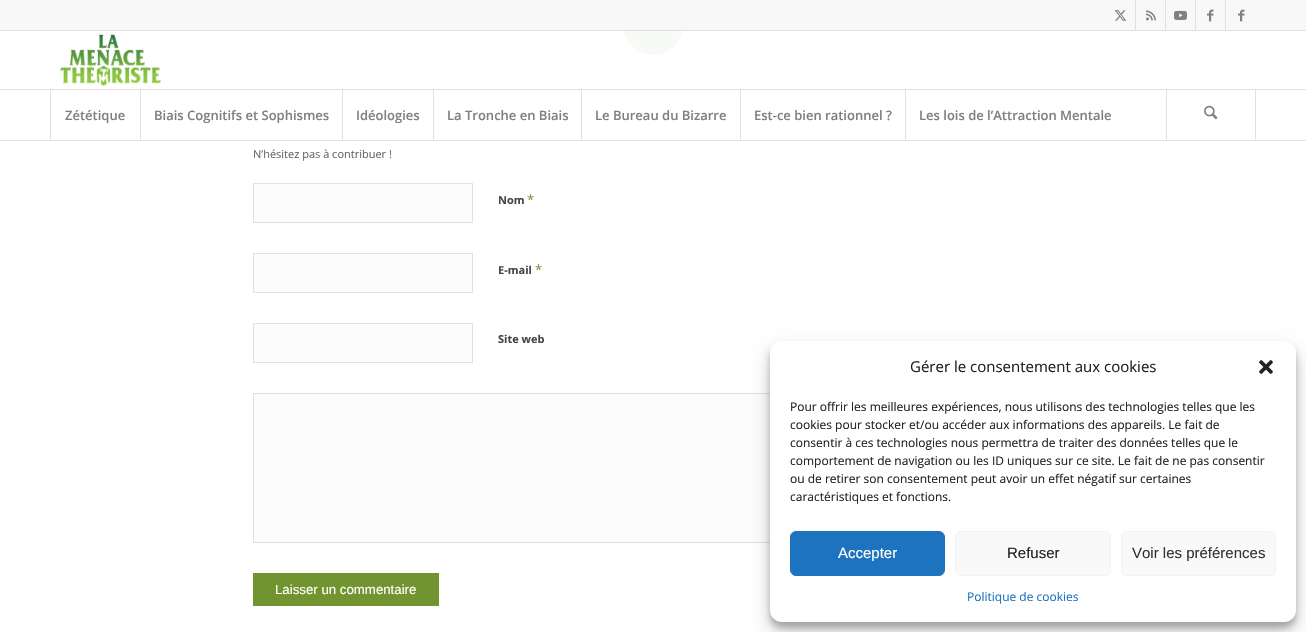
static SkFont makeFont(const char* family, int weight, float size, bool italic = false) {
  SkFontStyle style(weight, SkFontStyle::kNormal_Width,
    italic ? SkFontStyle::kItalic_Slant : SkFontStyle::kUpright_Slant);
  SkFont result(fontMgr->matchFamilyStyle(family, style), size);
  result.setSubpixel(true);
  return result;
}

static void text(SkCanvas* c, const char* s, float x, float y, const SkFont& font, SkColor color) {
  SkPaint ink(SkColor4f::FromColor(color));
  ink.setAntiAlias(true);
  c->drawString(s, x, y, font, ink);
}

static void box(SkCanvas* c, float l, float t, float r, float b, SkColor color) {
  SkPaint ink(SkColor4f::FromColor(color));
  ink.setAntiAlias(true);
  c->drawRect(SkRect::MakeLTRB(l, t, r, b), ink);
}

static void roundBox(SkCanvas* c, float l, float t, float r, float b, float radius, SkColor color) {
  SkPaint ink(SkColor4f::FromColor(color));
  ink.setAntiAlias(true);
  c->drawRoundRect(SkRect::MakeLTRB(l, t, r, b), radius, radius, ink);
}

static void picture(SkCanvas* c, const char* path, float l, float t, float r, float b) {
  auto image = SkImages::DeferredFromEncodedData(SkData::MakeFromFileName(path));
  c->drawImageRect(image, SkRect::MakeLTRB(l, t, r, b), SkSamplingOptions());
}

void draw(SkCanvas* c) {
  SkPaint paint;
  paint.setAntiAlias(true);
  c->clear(0xffffffff);
  paint.setColor(0xff719430);
  c->drawCircle(653, 25, 30, paint);
  box(c, 0, 0, 1306, 30, 0xfff8f8f8);
  box(c, 0, 30, 1306, 31, 0xffe1e1e1);
  box(c, 1135, 0, 1136, 30, 0xffe1e1e1);
  picture(c, "img_01.png", 1114, 10, 1127, 21);
  box(c, 1165, 0, 1166, 30, 0xffe1e1e1);
  picture(c, "img_02.png", 1146, 10, 1156, 21);
  box(c, 1195, 0, 1196, 30, 0xffe1e1e1);
  picture(c, "img_03.png", 1174, 10, 1187, 20);
  box(c, 1225, 0, 1226, 30, 0xffe1e1e1);
  picture(c, "img_04.png", 1207, 9, 1214, 22);
  picture(c, "img_04.png", 1238, 9, 1245, 22);
  box(c, 623, 31, 683, 55, 0xf2ffffff);
  box(c, 0, 140, 1306, 141, 0xffe1e1e1);
  picture(c, "img_05.png", 60, 34, 161, 87);
  box(c, 0, 89, 1306, 90, 0xffe1e1e1);
  box(c, 50, 90, 51, 140, 0xffe1e1e1);
  SkFont face1 = makeFont("Open Sans", 600, 13);
  text(c, "Zététique", 65, 120, face1, 0xff808080);
  box(c, 140, 90, 141, 140, 0xffe1e1e1);
  text(c, "Biais Cognitifs et Sophismes", 154, 120, face1, 0xff808080);
  box(c, 342, 90, 343, 140, 0xffe1e1e1);
  text(c, "Idéologies", 356, 120, face1, 0xff808080);
  box(c, 433, 90, 434, 140, 0xffe1e1e1);
  text(c, "La Tronche en Biais", 447, 120, face1, 0xff808080);
  box(c, 581, 90, 582, 140, 0xffe1e1e1);
  text(c, "Le Bureau du Bizarre", 595, 120, face1, 0xff808080);
  box(c, 740, 90, 741, 140, 0xffe1e1e1);
  text(c, "Est-ce bien rationnel ?", 754, 120, face1, 0xff808080);
  box(c, 905, 90, 906, 140, 0xffe1e1e1);
  text(c, "Les lois de l’Attraction Mentale", 919, 120, face1, 0xff808080);
  box(c, 1255, 90, 1256, 140, 0xffe1e1e1);
  box(c, 1166, 90, 1167, 140, 0xffe1e1e1);
  picture(c, "img_06.png", 1204, 105, 1218, 120);
  SkFont face2 = makeFont("Open Sans", 400, 11);
  text(c, "N’hésitez pas à contribuer !", 253, 158, face2, 0xff666666);
  paint.setColor(0xfffcfcfc);
  c->drawRect(SkRect::MakeLTRB(253.5f, 183.5f, 472.5f, 222.5f), paint);
  paint.setStyle(SkPaint::kStroke_Style);
  paint.setStrokeWidth(1);
  paint.setColor(0xffe1e1e1);
  c->drawRect(SkRect::MakeLTRB(253.5f, 183.5f, 472.5f, 222.5f), paint);
  SkFont face3 = makeFont("Open Sans", 700, 11);
  text(c, "Nom", 498, 204, face3, 0xff464646);
  SkFont face4 = makeFont("Open Sans", 400, 13);
  text(c, "*", 527, 204, face4, 0xff719430);
  paint.setStyle(SkPaint::kFill_Style);
  paint.setColor(0xfffcfcfc);
  c->drawRect(SkRect::MakeLTRB(253.5f, 253.5f, 472.5f, 292.5f), paint);
  paint.setStyle(SkPaint::kStroke_Style);
  paint.setColor(0xffe1e1e1);
  c->drawRect(SkRect::MakeLTRB(253.5f, 253.5f, 472.5f, 292.5f), paint);
  text(c, "E-mail", 498, 274, face3, 0xff464646);
  text(c, "*", 535, 274, face4, 0xff719430);
  paint.setStyle(SkPaint::kFill_Style);
  paint.setColor(0xfffcfcfc);
  c->drawRect(SkRect::MakeLTRB(253.5f, 323.5f, 472.5f, 362.5f), paint);
  paint.setStyle(SkPaint::kStroke_Style);
  paint.setColor(0xffe1e1e1);
  c->drawRect(SkRect::MakeLTRB(253.5f, 323.5f, 472.5f, 362.5f), paint);
  text(c, "Site web", 498, 343, face3, 0xff464646);
  box(c, 254, 394, 770, 542, 0xfffcfcfc);
  c->drawRect(SkRect::MakeLTRB(253.5f, 393.5f, 1052.5f, 542.5f), paint);
  box(c, 253, 573, 439, 606, 0xff719430);
  SkFont face5 = makeFont("Liberation Sans", 400, 13.25f);
  text(c, "Laisser un commentaire", 275, 594, face5, 0xffffffff);
  paint.setStyle(SkPaint::kFill_Style);
  paint.setColor(0x3b000000);
  paint.setMaskFilter(SkMaskFilter::MakeBlur(kNormal_SkBlurStyle, 3));
  c->drawRoundRect(SkRect::MakeLTRB(770, 347, 1296, 628), 12, 12, paint);
  paint.setMaskFilter(nullptr);
  paint.setColor(0x30000000);
  paint.setMaskFilter(SkMaskFilter::MakeBlur(kNormal_SkBlurStyle, 10));
  c->drawRoundRect(SkRect::MakeLTRB(770, 351, 1296, 632), 12, 12, paint);
  paint.setMaskFilter(nullptr);
  roundBox(c, 770, 341, 1296, 622, 12, 0xffffffff);
  SkFont face6 = makeFont("Open Sans", 400, 15);
  text(c, "Gérer le consentement aux cookies", 910, 372, face6, 0xff222222);
  picture(c, "img_07.png", 1259, 360, 1273, 374);
  SkFont face7 = makeFont("Open Sans", 400, 12);
  text(c, "Pour offrir les meilleures expériences, nous utilisons des technologies telles que les", 790, 411, face7, 0xff222222);
  text(c, "cookies pour stocker et/ou accéder aux informations des appareils. Le fait de", 790, 429, face7, 0xff222222);
  text(c, "consentir à ces technologies nous permettra de traiter des données telles que le", 790, 447, face7, 0xff222222);
  text(c, "comportement de navigation ou les ID uniques sur ce site. Le fait de ne pas consentir", 790, 465, face7, 0xff222222);
  text(c, "ou de retirer son consentement peut avoir un effet négatif sur certaines", 790, 483, face7, 0xff222222);
  text(c, "caractéristiques et fonctions.", 790, 501, face7, 0xff222222);
  paint.setColor(0xff1e73be);
  c->drawRoundRect(SkRect::MakeLTRB(790.5f, 531.5f, 944.5f, 575.5f), 5.5f, 5.5f, paint);
  paint.setStyle(SkPaint::kStroke_Style);
  c->drawRoundRect(SkRect::MakeLTRB(790.5f, 531.5f, 944.5f, 575.5f), 5.5f, 5.5f, paint);
  SkFont face8 = makeFont("Liberation Sans", 400, 15);
  text(c, "Accepter", 838, 558, face8, 0xffffffff);
  paint.setStyle(SkPaint::kFill_Style);
  paint.setColor(0xfff9f9f9);
  c->drawRoundRect(SkRect::MakeLTRB(955.5f, 531.5f, 1110.5f, 575.5f), 5.5f, 5.5f, paint);
  paint.setStyle(SkPaint::kStroke_Style);
  paint.setColor(0xfff2f2f2);
  c->drawRoundRect(SkRect::MakeLTRB(955.5f, 531.5f, 1110.5f, 575.5f), 5.5f, 5.5f, paint);
  text(c, "Refuser", 1007, 558, face8, 0xff222222);
  paint.setStyle(SkPaint::kFill_Style);
  paint.setColor(0xfff9f9f9);
  c->drawRoundRect(SkRect::MakeLTRB(1121.5f, 531.5f, 1275.5f, 575.5f), 5.5f, 5.5f, paint);
  paint.setStyle(SkPaint::kStroke_Style);
  paint.setColor(0xfff2f2f2);
  c->drawRoundRect(SkRect::MakeLTRB(1121.5f, 531.5f, 1275.5f, 575.5f), 5.5f, 5.5f, paint);
  text(c, "Voir les préférences", 1132, 558, face8, 0xff333333);
  text(c, "Politique de cookies", 967, 601, face7, 0xff1e73be);
}
